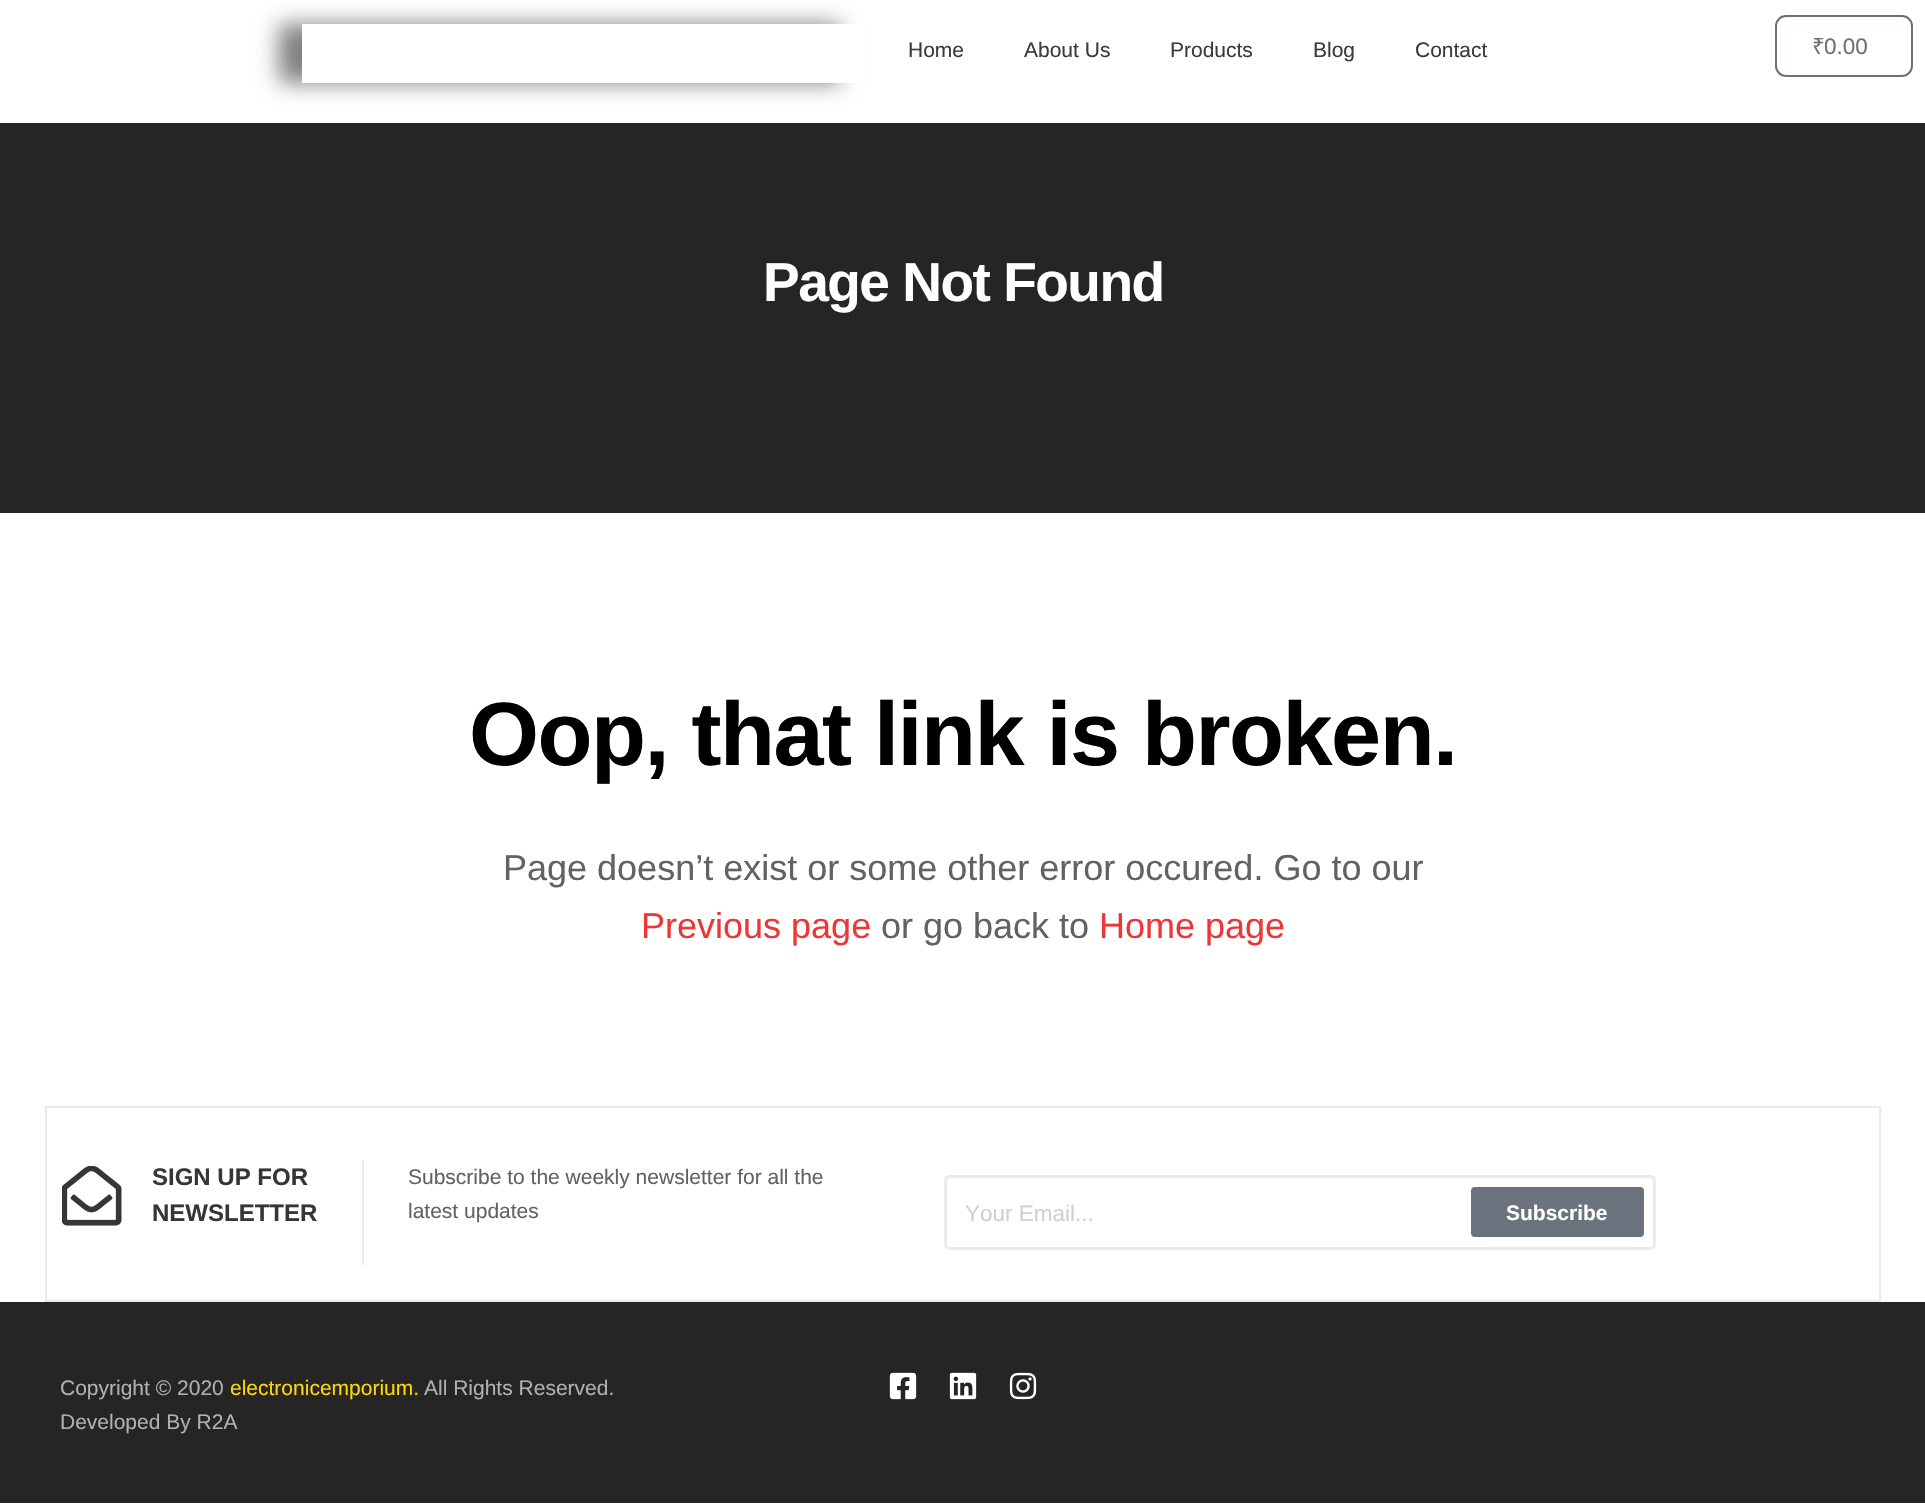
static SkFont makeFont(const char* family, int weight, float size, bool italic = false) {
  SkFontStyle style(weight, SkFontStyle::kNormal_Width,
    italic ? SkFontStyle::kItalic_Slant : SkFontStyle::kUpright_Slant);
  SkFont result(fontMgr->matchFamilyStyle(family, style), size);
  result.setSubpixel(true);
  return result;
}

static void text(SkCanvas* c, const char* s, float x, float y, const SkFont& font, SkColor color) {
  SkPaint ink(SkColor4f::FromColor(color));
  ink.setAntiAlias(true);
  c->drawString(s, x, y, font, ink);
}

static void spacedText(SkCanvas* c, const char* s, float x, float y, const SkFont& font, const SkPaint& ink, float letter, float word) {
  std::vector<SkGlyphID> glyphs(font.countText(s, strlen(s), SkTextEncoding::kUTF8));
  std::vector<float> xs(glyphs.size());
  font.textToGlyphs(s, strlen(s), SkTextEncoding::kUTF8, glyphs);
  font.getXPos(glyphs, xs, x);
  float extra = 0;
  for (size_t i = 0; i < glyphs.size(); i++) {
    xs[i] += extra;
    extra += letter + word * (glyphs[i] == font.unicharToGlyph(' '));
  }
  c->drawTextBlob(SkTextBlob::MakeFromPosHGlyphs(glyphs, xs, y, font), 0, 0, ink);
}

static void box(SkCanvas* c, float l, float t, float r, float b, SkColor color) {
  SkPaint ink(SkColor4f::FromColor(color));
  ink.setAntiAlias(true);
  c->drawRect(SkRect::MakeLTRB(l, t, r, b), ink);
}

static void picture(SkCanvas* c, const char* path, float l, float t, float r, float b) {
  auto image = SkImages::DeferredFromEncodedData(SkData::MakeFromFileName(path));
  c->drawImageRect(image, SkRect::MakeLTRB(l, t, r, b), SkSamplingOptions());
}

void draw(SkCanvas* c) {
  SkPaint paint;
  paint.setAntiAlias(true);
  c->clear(0xffffffff);
  c->save();
  c->clipPath(SkPathBuilder(SkPathFillType::kEvenOdd).moveTo(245, 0).lineTo(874, 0).lineTo(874, 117).lineTo(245, 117).close().moveTo(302, 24).lineTo(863, 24).lineTo(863, 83).lineTo(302, 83).close().detach(), true);
  paint.setColor(0x80000000);
  paint.setMaskFilter(SkMaskFilter::MakeBlur(kNormal_SkBlurStyle, 11));
  c->drawRect(SkRect::MakeLTRB(279, 24, 840, 83), paint);
  paint.setMaskFilter(nullptr);
  c->restore();
  SkFont face1 = makeFont("Liberation Sans", 400, 21);
  text(c, "Home", 908, 57, face1, 0xff3c3b3b);
  text(c, "About Us", 1024, 57, face1, 0xff3c3b3b);
  text(c, "Products", 1170, 57, face1, 0xff3c3b3b);
  text(c, "Blog", 1313, 57, face1, 0xff3c3b3b);
  text(c, "Contact", 1415, 57, face1, 0xff3c3b3b);
  paint.setStyle(SkPaint::kStroke_Style);
  paint.setStrokeWidth(2);
  paint.setColor(0xff69727d);
  c->drawRoundRect(SkRect::MakeLTRB(1776, 16, 1912, 76), 10, 10, paint);
  SkFont face2 = makeFont("Noto Sans", 400, 22.5f);
  text(c, "₹", 1812, 54, face2, 0xff69727d);
  SkFont face3 = makeFont("Liberation Sans", 400, 22.5f);
  text(c, "0.00", 1824, 54, face3, 0xff69727d);
  box(c, 0, 123, 1925, 513, 0xff252525);
  SkFont face4 = makeFont("Liberation Sans", 700, 55);
  paint.setStyle(SkPaint::kFill_Style);
  paint.setColor(0xffffffff);
  spacedText(c, "Page Not Found", 763, 301, face4, paint, -1.5f, 0);
  SkFont face5 = makeFont("Liberation Sans", 700, 90);
  paint.setColor(0xff000000);
  spacedText(c, "Oop, that link is broken.", 469, 765, face5, paint, -1.5f, 0);
  SkFont face6 = makeFont("Liberation Sans", 400, 36);
  text(c, "Page doesn’t exist or some other error occured. Go to our", 503, 880, face6, 0xff626262);
  text(c, "Previous page", 641, 938, face6, 0xffef3636);
  text(c, "or go back to", 881, 938, face6, 0xff626262);
  text(c, "Home page", 1099, 938, face6, 0xffef3636);
  paint.setStyle(SkPaint::kStroke_Style);
  paint.setColor(0xffeaeaea);
  c->drawRect(SkRect::MakeLTRB(46, 1107, 1880, 1301), paint);
  box(c, 362, 1160, 364, 1265, 0xffeaeaea);
  picture(c, "img_01.png", 62, 1166, 122, 1226);
  SkFont face7 = makeFont("Liberation Sans", 700, 24);
  text(c, "SIGN UP FOR", 152, 1185, face7, 0xff363636);
  text(c, "NEWSLETTER", 152, 1221, face7, 0xff363636);
  text(c, "Subscribe to the weekly newsletter for all the", 408, 1184, face1, 0xff626262);
  text(c, "latest updates", 408, 1218, face1, 0xff626262);
  paint.setStrokeWidth(3);
  paint.setColor(0xffebebeb);
  c->drawRoundRect(SkRect::MakeLTRB(945.5f, 1176.5f, 1654.5f, 1248.5f), 4.5f, 4.5f, paint);
  text(c, "Your Email...", 965, 1221, face3, 0xffd0d0d0);
  paint.setStyle(SkPaint::kFill_Style);
  paint.setColor(0xff69727d);
  c->drawRoundRect(SkRect::MakeLTRB(1468.5f, 1184.5f, 1646.5f, 1239.5f), 6.5f, 6.5f, paint);
  paint.setStyle(SkPaint::kStroke_Style);
  paint.setStrokeWidth(5);
  paint.setColor(0xffffffff);
  c->drawRoundRect(SkRect::MakeLTRB(1468.5f, 1184.5f, 1646.5f, 1239.5f), 6.5f, 6.5f, paint);
  SkFont face8 = makeFont("Liberation Sans", 700, 21);
  text(c, "Subscribe", 1506, 1220, face8, 0xffffffff);
  box(c, 0, 1302, 1925, 1503, 0xff252525);
  text(c, "Copyright © 2020", 60, 1395, face1, 0xffb0b0b0);
  text(c, "electronicemporium.", 230, 1395, face1, 0xfffed700);
  text(c, "All Rights Reserved.", 424, 1395, face1, 0xffb0b0b0);
  text(c, "Developed By R2A", 60, 1429, face1, 0xffb0b0b0);
  picture(c, "img_02.png", 889, 1372, 917, 1400);
  picture(c, "img_03.png", 949, 1372, 977, 1400);
  picture(c, "img_04.png", 1009, 1372, 1037, 1400);
}
